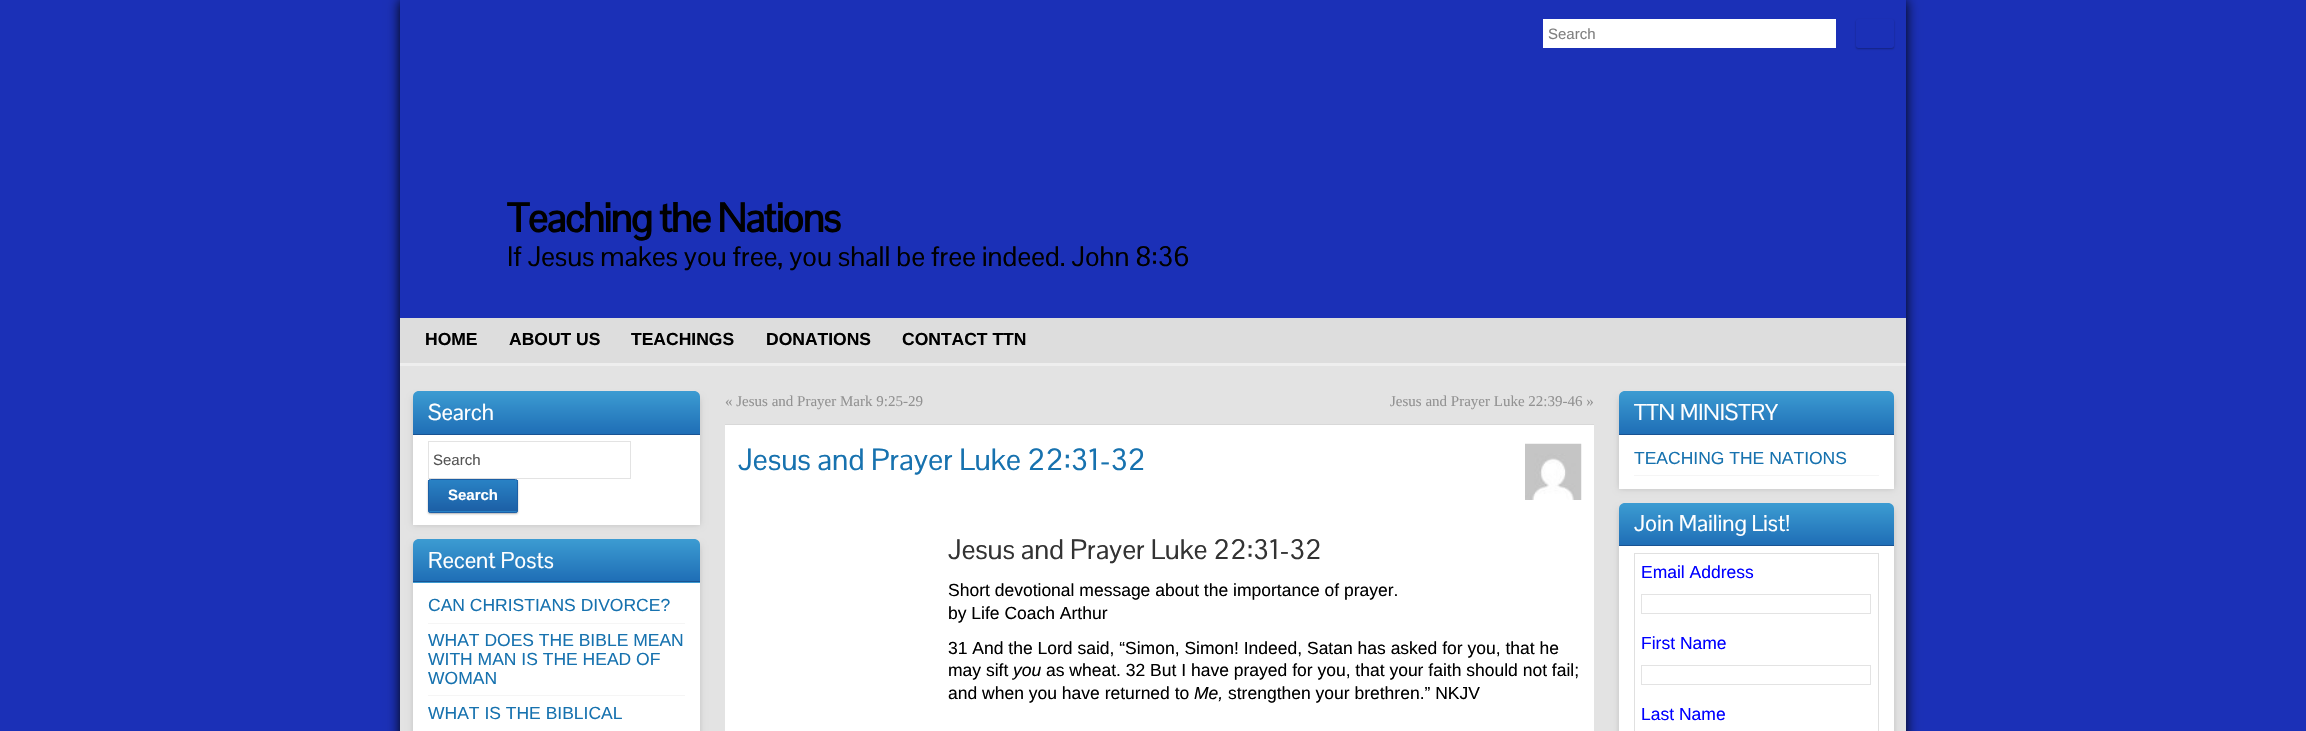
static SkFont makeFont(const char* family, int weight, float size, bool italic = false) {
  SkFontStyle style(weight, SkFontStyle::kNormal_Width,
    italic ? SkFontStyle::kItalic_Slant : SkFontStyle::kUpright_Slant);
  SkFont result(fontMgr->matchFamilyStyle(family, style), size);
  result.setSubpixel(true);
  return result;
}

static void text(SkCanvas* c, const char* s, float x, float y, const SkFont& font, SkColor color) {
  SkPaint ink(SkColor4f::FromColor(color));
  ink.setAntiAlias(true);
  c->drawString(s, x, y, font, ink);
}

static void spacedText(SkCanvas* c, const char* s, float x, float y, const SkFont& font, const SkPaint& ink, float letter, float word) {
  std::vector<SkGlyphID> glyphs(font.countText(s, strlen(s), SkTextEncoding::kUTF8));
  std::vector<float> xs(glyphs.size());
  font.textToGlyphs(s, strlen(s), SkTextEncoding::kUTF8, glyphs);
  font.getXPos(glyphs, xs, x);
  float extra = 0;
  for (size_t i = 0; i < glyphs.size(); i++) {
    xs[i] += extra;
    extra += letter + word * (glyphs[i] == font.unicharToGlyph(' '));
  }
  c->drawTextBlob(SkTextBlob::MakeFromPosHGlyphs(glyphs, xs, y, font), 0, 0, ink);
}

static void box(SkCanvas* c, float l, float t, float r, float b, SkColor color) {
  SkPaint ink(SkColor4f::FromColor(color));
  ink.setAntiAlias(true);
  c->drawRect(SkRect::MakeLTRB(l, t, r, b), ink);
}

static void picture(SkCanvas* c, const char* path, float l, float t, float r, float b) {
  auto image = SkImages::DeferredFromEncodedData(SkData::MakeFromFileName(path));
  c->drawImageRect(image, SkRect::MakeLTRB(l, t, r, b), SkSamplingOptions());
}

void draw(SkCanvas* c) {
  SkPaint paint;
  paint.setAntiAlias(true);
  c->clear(0xff1b30b7);
  c->save();
  c->clipPath(SkPathBuilder(SkPathFillType::kEvenOdd).moveTo(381, 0).lineTo(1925, 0).lineTo(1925, 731).lineTo(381, 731).close().moveTo(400, 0).lineTo(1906, 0).lineTo(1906, 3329).lineTo(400, 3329).close().detach(), true);
  paint.setColor(0xff000000);
  paint.setMaskFilter(SkMaskFilter::MakeBlur(kNormal_SkBlurStyle, 6));
  c->drawRect(SkRect::MakeLTRB(400, 0, 1906, 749), paint);
  paint.setMaskFilter(nullptr);
  c->restore();
  box(c, 1543, 19, 1836, 48, 0xffffffff);
  SkFont face1 = makeFont("Liberation Sans", 400, 15);
  text(c, "Search", 1548, 39, face1, 0xff808080);
  c->save();
  c->clipPath(SkPathBuilder(SkPathFillType::kEvenOdd).moveTo(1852, 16).lineTo(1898, 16).lineTo(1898, 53).lineTo(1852, 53).close().moveTo(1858.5f, 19).lineTo(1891.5f, 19).cubicTo(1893, 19, 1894, 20, 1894, 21.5f).lineTo(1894, 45.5f).cubicTo(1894, 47, 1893, 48, 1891.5f, 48).lineTo(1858.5f, 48).cubicTo(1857, 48, 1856, 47, 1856, 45.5f).lineTo(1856, 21.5f).cubicTo(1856, 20, 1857, 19, 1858.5f, 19).close().detach(), true);
  paint.setColor(0x4d000000);
  paint.setMaskFilter(SkMaskFilter::MakeBlur(kNormal_SkBlurStyle, 1));
  c->drawRoundRect(SkRect::MakeLTRB(1856, 20, 1894, 49), 2.5f, 2.5f, paint);
  paint.setMaskFilter(nullptr);
  c->restore();
  SkFont face2 = makeFont("Pontano Sans", 700, 40);
  paint.setColor(0xff000000);
  spacedText(c, "Teaching the Nations", 507, 232, face2, paint, -1.25f, 0);
  SkFont face3 = makeFont("Pontano Sans", 400, 27.5f);
  text(c, "If Jesus makes you free, you shall be free indeed. John 8:36", 507, 266, face3, 0xff000000);
  box(c, 400, 318, 1906, 363, 0xffdddddd);
  SkFont face4 = makeFont("Liberation Sans", 700, 17.5f);
  text(c, "HOME", 425, 345, face4, 0xff000000);
  text(c, "ABOUT US", 509, 345, face4, 0xff000000);
  text(c, "TEACHINGS", 631, 345, face4, 0xff000000);
  text(c, "DONATIONS", 766, 345, face4, 0xff000000);
  text(c, "CONTACT TTN", 902, 345, face4, 0xff000000);
  box(c, 400, 363, 1906, 366, 0xffeeeeee);
  box(c, 400, 366, 1906, 731, 0xffe3e3e3);
  paint.setColor(0x26000000);
  paint.setMaskFilter(SkMaskFilter::MakeBlur(kNormal_SkBlurStyle, 3));
  c->drawRect(SkRect::MakeLTRB(413, 398, 700, 525), paint);
  paint.setMaskFilter(nullptr);
  box(c, 413, 435, 700, 525, 0xffffffff);
  {
    const SkColor colors[] = {0xff3c9cd2, 0xff1f6eb6};
    const float stops[] = {0, 1};
    const SkPoint ends[] = {{556, 391}, {556, 434}};
    paint.setShader(SkGradientShader::MakeLinear(ends, colors, stops, 2, SkTileMode::kClamp));
    paint.setAlpha(255);
  }
  c->drawPath(SkPathBuilder().moveTo(419, 391).lineTo(694, 391).cubicTo(697.5f, 391, 700, 393.5f, 700, 397).lineTo(700, 434).lineTo(413, 434).lineTo(413, 397).cubicTo(413, 393.5f, 415.5f, 391, 419, 391).close().detach(), paint);
  box(c, 413, 434, 700, 435, 0xff195392);
  SkFont face5 = makeFont("Pontano Sans", 400, 22.5f);
  text(c, "Search", 428, 420, face5, 0xffffffff);
  paint.setStyle(SkPaint::kStroke_Style);
  paint.setStrokeWidth(1);
  paint.setShader(nullptr);
  paint.setColor(0xffe3e3e3);
  c->drawRect(SkRect::MakeLTRB(428.5f, 441.5f, 630.5f, 478.5f), paint);
  text(c, "Search", 433, 465, face1, 0xff555555);
  paint.setStyle(SkPaint::kFill_Style);
  paint.setColor(0x4d000000);
  paint.setMaskFilter(SkMaskFilter::MakeBlur(kNormal_SkBlurStyle, 1));
  c->drawRoundRect(SkRect::MakeLTRB(428, 480, 518, 514), 2.5f, 2.5f, paint);
  paint.setMaskFilter(nullptr);
  {
    const SkColor colors[] = {0xff2982c5, 0xff1c5fa5};
    const float stops[] = {0, 1};
    const SkPoint ends[] = {{473, 480}, {473, 511}};
    paint.setShader(SkGradientShader::MakeLinear(ends, colors, stops, 2, SkTileMode::kClamp));
    paint.setAlpha(255);
  }
  c->drawRect(SkRect::MakeLTRB(428, 480, 518, 511), paint);
  c->save();
  c->clipPath(SkPathBuilder().moveTo(430.5f, 479).lineTo(515.5f, 479).cubicTo(517, 479, 518, 480, 518, 481.5f).lineTo(518, 510.5f).cubicTo(518, 512, 517, 513, 515.5f, 513).lineTo(430.5f, 513).cubicTo(429, 513, 428, 512, 428, 510.5f).lineTo(428, 481.5f).cubicTo(428, 480, 429, 479, 430.5f, 479).close().detach(), true);
  {
    const SkColor colors[] = {0xff2982c5, 0xff1c5fa5};
    const float stops[] = {0, 1};
    const SkPoint ends[] = {{473, 511}, {473, 543}};
    paint.setShader(SkGradientShader::MakeLinear(ends, colors, stops, 2, SkTileMode::kClamp));
    paint.setAlpha(255);
  }
  c->drawRect(SkRect::MakeLTRB(428, 511, 518, 513), paint);
  c->restore();
  paint.setStyle(SkPaint::kStroke_Style);
  paint.setShader(nullptr);
  paint.setColor(0xff1c5fa5);
  c->drawRoundRect(SkRect::MakeLTRB(428.5f, 479.5f, 517.5f, 512.5f), 2, 2, paint);
  SkFont face6 = makeFont("Liberation Sans", 700, 15);
  text(c, "Search", 448, 500, face6, 0xffffffff);
  paint.setStyle(SkPaint::kFill_Style);
  paint.setColor(0x26000000);
  paint.setMaskFilter(SkMaskFilter::MakeBlur(kNormal_SkBlurStyle, 3));
  c->drawRect(SkRect::MakeLTRB(413, 545, 700, 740), paint);
  paint.setMaskFilter(nullptr);
  box(c, 413, 583, 700, 731, 0xffffffff);
  {
    const SkColor colors[] = {0xff3c9cd2, 0xff1f6eb6};
    const float stops[] = {0, 1};
    const SkPoint ends[] = {{556, 539}, {556, 581}};
    paint.setShader(SkGradientShader::MakeLinear(ends, colors, stops, 2, SkTileMode::kClamp));
    paint.setAlpha(255);
  }
  c->drawPath(SkPathBuilder().moveTo(419, 539).lineTo(694, 539).cubicTo(697.5f, 539, 700, 541.5f, 700, 545).lineTo(700, 581).lineTo(413, 581).lineTo(413, 545).cubicTo(413, 541.5f, 415.5f, 539, 419, 539).close().detach(), paint);
  {
    const SkColor colors[] = {0xff3c9cd2, 0xff1f6eb6};
    const float stops[] = {0, 1};
    const SkPoint ends[] = {{556, 581}, {556, 624}};
    paint.setShader(SkGradientShader::MakeLinear(ends, colors, stops, 2, SkTileMode::kClamp));
    paint.setAlpha(255);
  }
  c->drawRect(SkRect::MakeLTRB(413, 582, 700, 583), paint);
  box(c, 413, 581, 700, 582, 0xff195392);
  text(c, "Recent Posts", 428, 568, face5, 0xffffffff);
  box(c, 428, 623, 685, 624, 0xfff5f5f5);
  SkFont face7 = makeFont("Liberation Sans", 400, 17.5f);
  text(c, "CAN CHRISTIANS DIVORCE?", 428, 611, face7, 0xff1772af);
  box(c, 428, 695, 685, 696, 0xfff5f5f5);
  text(c, "WHAT DOES THE BIBLE MEAN", 428, 646, face7, 0xff1772af);
  text(c, "WITH MAN IS THE HEAD OF", 428, 665, face7, 0xff1772af);
  text(c, "WOMAN", 428, 684, face7, 0xff1772af);
  text(c, "WHAT IS THE BIBLICAL", 428, 719, face7, 0xff1772af);
  SkFont face8 = makeFont("Liberation Serif", 400, 15);
  text(c, "« Jesus and Prayer Mark 9:25-29", 725, 406, face8, 0xff929292);
  text(c, "Jesus and Prayer Luke 22:39-46 »", 1390, 406, face8, 0xff929292);
  box(c, 725, 425, 1594, 731, 0xffffffff);
  box(c, 725, 424, 1594, 425, 0xffd8d8d8);
  SkFont face9 = makeFont("Pontano Sans", 400, 30);
  text(c, "Jesus and Prayer Luke 22:31-32", 738, 470, face9, 0xff1772af);
  picture(c, "img_01.png", 1525, 443, 1582, 500);
  text(c, "Jesus and Prayer Luke 22:31-32", 948, 559, face3, 0xff333333);
  text(c, "Short devotional message about the importance of prayer.", 948, 596, face7, 0xff000000);
  text(c, "by Life Coach Arthur", 948, 619, face7, 0xff000000);
  text(c, "31 And the Lord said, “Simon, Simon! Indeed, Satan has asked for you, that he", 948, 654, face7, 0xff000000);
  text(c, "may sift", 948, 676, face7, 0xff000000);
  SkFont face10 = makeFont("Liberation Sans", 400, 17.5f, true);
  text(c, "you", 1013, 676, face10, 0xff000000);
  text(c, "as wheat. 32 But I have prayed for you, that your faith should not fail;", 1046, 676, face7, 0xff000000);
  text(c, "and when you have returned to", 948, 699, face7, 0xff000000);
  text(c, "Me,", 1194, 699, face10, 0xff000000);
  text(c, "strengthen your brethren.” NKJV", 1228, 699, face7, 0xff000000);
  paint.setShader(nullptr);
  paint.setColor(0x26000000);
  paint.setMaskFilter(SkMaskFilter::MakeBlur(kNormal_SkBlurStyle, 3));
  c->drawRect(SkRect::MakeLTRB(1619, 398, 1894, 489), paint);
  paint.setMaskFilter(nullptr);
  box(c, 1619, 435, 1894, 489, 0xffffffff);
  {
    const SkColor colors[] = {0xff3c9cd2, 0xff1f6eb6};
    const float stops[] = {0, 1};
    const SkPoint ends[] = {{1756, 391}, {1756, 434}};
    paint.setShader(SkGradientShader::MakeLinear(ends, colors, stops, 2, SkTileMode::kClamp));
    paint.setAlpha(255);
  }
  c->drawPath(SkPathBuilder().moveTo(1625, 391).lineTo(1888, 391).cubicTo(1891.5f, 391, 1894, 393.5f, 1894, 397).lineTo(1894, 434).lineTo(1619, 434).lineTo(1619, 397).cubicTo(1619, 393.5f, 1621.5f, 391, 1625, 391).close().detach(), paint);
  box(c, 1619, 434, 1894, 435, 0xff195392);
  text(c, "TTN MINISTRY", 1634, 420, face5, 0xffffffff);
  box(c, 1634, 475, 1879, 476, 0xfff5f5f5);
  text(c, "TEACHING THE NATIONS", 1634, 464, face7, 0xff1772af);
  paint.setShader(nullptr);
  paint.setColor(0x26000000);
  paint.setMaskFilter(SkMaskFilter::MakeBlur(kNormal_SkBlurStyle, 3));
  c->drawRect(SkRect::MakeLTRB(1619, 509, 1894, 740), paint);
  paint.setMaskFilter(nullptr);
  box(c, 1619, 546, 1894, 731, 0xffffffff);
  {
    const SkColor colors[] = {0xff3c9cd2, 0xff1f6eb6};
    const float stops[] = {0, 1};
    const SkPoint ends[] = {{1756, 503}, {1756, 545}};
    paint.setShader(SkGradientShader::MakeLinear(ends, colors, stops, 2, SkTileMode::kClamp));
    paint.setAlpha(255);
  }
  c->drawPath(SkPathBuilder().moveTo(1625, 503).lineTo(1888, 503).cubicTo(1891.5f, 503, 1894, 505.5f, 1894, 509).lineTo(1894, 545).lineTo(1619, 545).lineTo(1619, 509).cubicTo(1619, 505.5f, 1621.5f, 503, 1625, 503).close().detach(), paint);
  box(c, 1619, 545, 1894, 546, 0xff195392);
  text(c, "Join Mailing List!", 1634, 531, face5, 0xffffffff);
  paint.setStyle(SkPaint::kStroke_Style);
  paint.setShader(nullptr);
  paint.setColor(0xffe0e0e0);
  c->drawRect(SkRect::MakeLTRB(1634.5f, 553.5f, 1878.5f, 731.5f), paint);
  text(c, "Email Address", 1641, 578, face7, 0xff0000ff);
  paint.setColor(0xffe3e3e3);
  c->drawRect(SkRect::MakeLTRB(1641.5f, 594.5f, 1870.5f, 613.5f), paint);
  text(c, "First Name", 1641, 649, face7, 0xff0000ff);
  c->drawRect(SkRect::MakeLTRB(1641.5f, 665.5f, 1870.5f, 684.5f), paint);
  text(c, "Last Name", 1641, 720, face7, 0xff0000ff);
}
